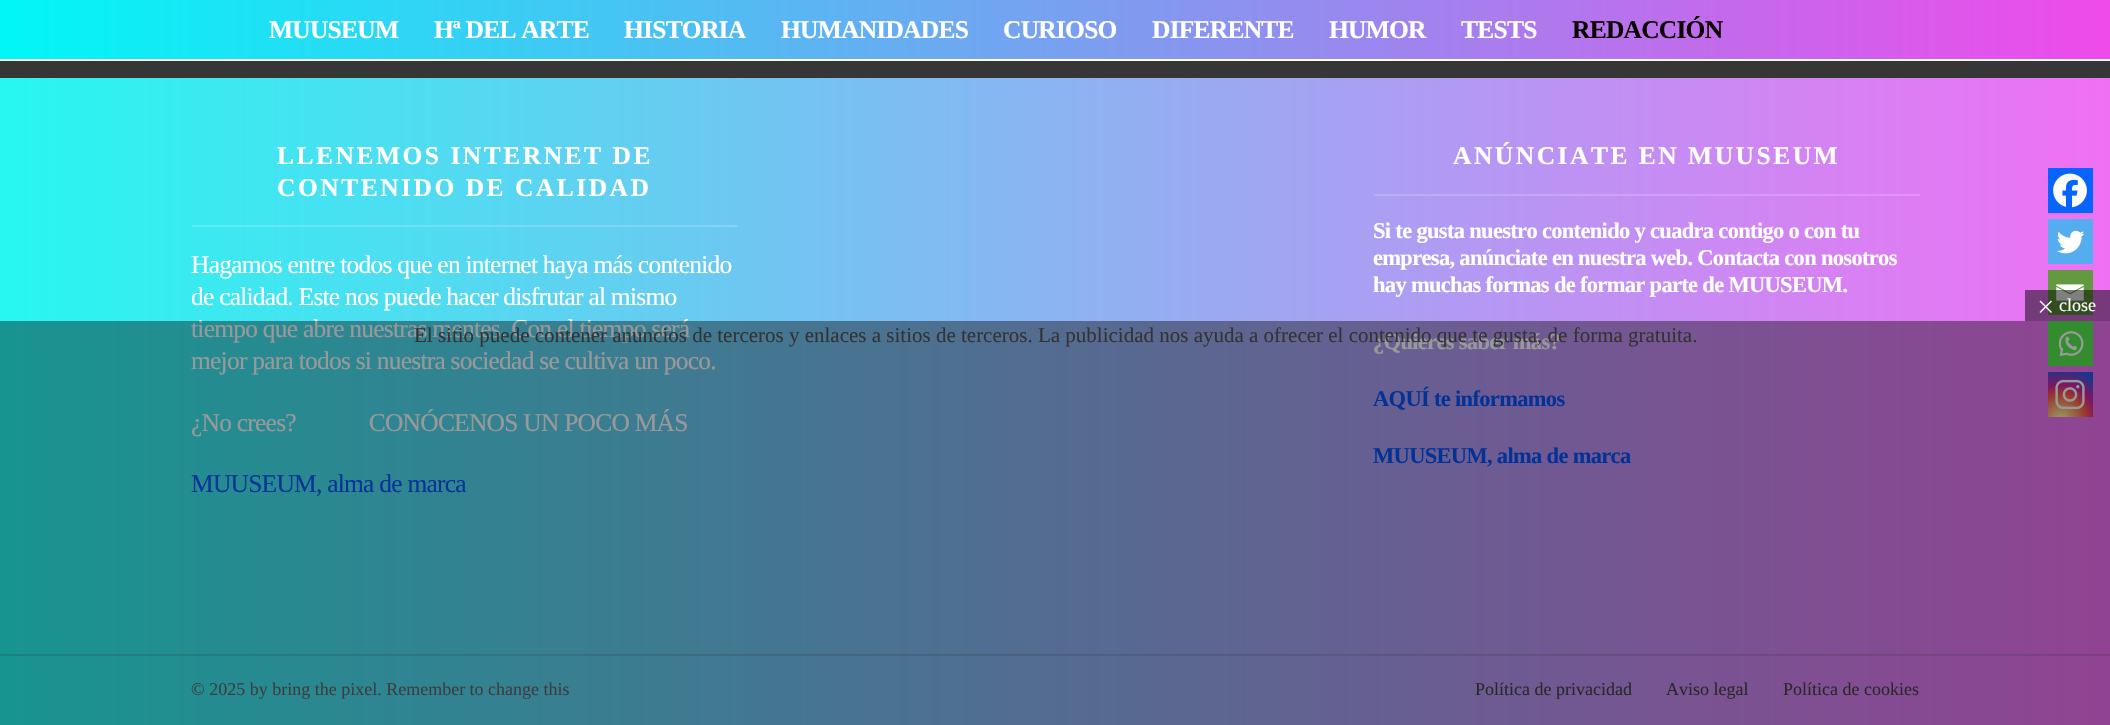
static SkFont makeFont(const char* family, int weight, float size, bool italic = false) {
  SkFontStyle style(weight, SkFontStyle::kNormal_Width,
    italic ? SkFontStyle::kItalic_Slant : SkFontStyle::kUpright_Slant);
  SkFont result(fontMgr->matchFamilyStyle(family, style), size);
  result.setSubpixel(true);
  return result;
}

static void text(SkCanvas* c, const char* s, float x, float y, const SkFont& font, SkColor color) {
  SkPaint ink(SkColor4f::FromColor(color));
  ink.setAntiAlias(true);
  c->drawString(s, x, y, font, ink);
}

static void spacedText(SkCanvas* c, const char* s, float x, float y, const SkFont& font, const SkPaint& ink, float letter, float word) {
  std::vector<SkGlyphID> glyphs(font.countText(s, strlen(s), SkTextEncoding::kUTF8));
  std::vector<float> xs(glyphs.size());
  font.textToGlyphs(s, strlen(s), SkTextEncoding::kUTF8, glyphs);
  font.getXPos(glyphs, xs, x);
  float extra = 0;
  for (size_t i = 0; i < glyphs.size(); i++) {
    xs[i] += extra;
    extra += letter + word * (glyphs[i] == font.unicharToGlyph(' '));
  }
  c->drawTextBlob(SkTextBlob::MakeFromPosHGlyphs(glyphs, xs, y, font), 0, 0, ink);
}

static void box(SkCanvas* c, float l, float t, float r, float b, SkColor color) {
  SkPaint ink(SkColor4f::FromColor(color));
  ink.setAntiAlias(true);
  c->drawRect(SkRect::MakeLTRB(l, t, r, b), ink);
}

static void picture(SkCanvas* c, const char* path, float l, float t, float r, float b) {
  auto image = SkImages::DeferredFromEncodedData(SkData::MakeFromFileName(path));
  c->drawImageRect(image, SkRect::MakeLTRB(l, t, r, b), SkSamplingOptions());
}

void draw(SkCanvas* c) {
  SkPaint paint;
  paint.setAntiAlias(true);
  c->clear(0xff363636);
  {
    const SkColor colors[] = {0xff00f7f7, 0xffef4aea};
    const float stops[] = {0, 1};
    const SkPoint ends[] = {{0, 29}, {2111, 29}};
    paint.setShader(SkGradientShader::MakeLinear(ends, colors, stops, 2, SkTileMode::kClamp));
    paint.setAlpha(255);
  }
  c->drawRect(SkRect::MakeLTRB(0, 0, 2110, 59), paint);
  box(c, 0, 59, 2110, 61, 0xffffffff);
  SkFont face1 = makeFont("Liberation Serif", 700, 25.5f);
  paint.setShader(nullptr);
  paint.setColor(0xffffffff);
  spacedText(c, "MUUSEUM", 269, 38, face1, paint, -0.77f, 0);
  spacedText(c, "Hª DEL ARTE", 434, 38, face1, paint, -0.77f, 0);
  spacedText(c, "HISTORIA", 624, 38, face1, paint, -0.77f, 0);
  spacedText(c, "HUMANIDADES", 781, 38, face1, paint, -0.77f, 0);
  spacedText(c, "CURIOSO", 1003, 38, face1, paint, -0.77f, 0);
  spacedText(c, "DIFERENTE", 1152, 38, face1, paint, -0.77f, 0);
  spacedText(c, "HUMOR", 1329, 38, face1, paint, -0.77f, 0);
  spacedText(c, "TESTS", 1461, 38, face1, paint, -0.77f, 0);
  paint.setColor(0xff0a0000);
  spacedText(c, "REDACCIÓN", 1572, 38, face1, paint, -0.77f, 0);
  {
    const SkColor colors[] = {0xff27f7f0, 0xfff070f4};
    const float stops[] = {0, 1};
    const SkPoint ends[] = {{0, 366}, {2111, 366}};
    paint.setShader(SkGradientShader::MakeLinear(ends, colors, stops, 2, SkTileMode::kClamp));
    paint.setAlpha(255);
  }
  c->drawRect(SkRect::MakeLTRB(0, 78, 2110, 654), paint);
  {
    const SkColor colors[] = {0xff4cf8f3, 0xfff388f6};
    const float stops[] = {0, 1};
    const SkPoint ends[] = {{0, 366}, {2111, 366}};
    paint.setShader(SkGradientShader::MakeLinear(ends, colors, stops, 2, SkTileMode::kClamp));
    paint.setAlpha(255);
  }
  c->drawRect(SkRect::MakeLTRB(1374, 194, 1920, 196), paint);
  c->drawRect(SkRect::MakeLTRB(192, 225, 738, 227), paint);
  paint.setShader(nullptr);
  paint.setColor(0xffffffff);
  spacedText(c, "LLENEMOS INTERNET DE", 277, 164, face1, paint, 2.5f, 0);
  spacedText(c, "CONTENIDO DE CALIDAD", 277, 196, face1, paint, 2.5f, 0);
  SkFont face2 = makeFont("Liberation Serif", 400, 25.5f);
  spacedText(c, "Hagamos entre todos que en internet haya más contenido", 191, 273, face2, paint, -0.77f, 0);
  spacedText(c, "de calidad. Este nos puede hacer disfrutar al mismo", 191, 305, face2, paint, -0.77f, 0);
  spacedText(c, "tiempo que abre nuestras mentes. Con el tiempo será", 191, 337, face2, paint, -0.77f, 0);
  spacedText(c, "mejor para todos si nuestra sociedad se cultiva un poco.", 191, 369, face2, paint, -0.77f, 0);
  spacedText(c, "¿No crees?             CONÓCENOS UN POCO MÁS", 191, 431, face2, paint, -0.77f, 0);
  paint.setColor(0xff0553fc);
  spacedText(c, "MUUSEUM, alma de marca", 191, 492, face2, paint, -0.77f, 0);
  paint.setColor(0xffffffff);
  spacedText(c, "ANÚNCIATE EN MUUSEUM", 1453, 164, face1, paint, 2.5f, 0);
  SkFont face3 = makeFont("Liberation Serif", 700, 22.5f);
  spacedText(c, "Si te gusta nuestro contenido y cuadra contigo o con tu", 1373, 238, face3, paint, -0.68f, 0);
  spacedText(c, "empresa, anúnciate en nuestra web. Contacta con nosotros", 1373, 265, face3, paint, -0.68f, 0);
  spacedText(c, "hay muchas formas de formar parte de MUUSEUM.", 1373, 292, face3, paint, -0.68f, 0);
  spacedText(c, "¿Quieres saber más?", 1373, 349, face3, paint, -0.68f, 0);
  paint.setColor(0xff0553fc);
  spacedText(c, "AQUÍ te informamos", 1373, 406, face3, paint, -0.68f, 0);
  spacedText(c, "MUUSEUM, alma de marca", 1373, 463, face3, paint, -0.68f, 0);
  box(c, 2048, 168, 2093, 213, 0xff0765fe);
  picture(c, "img_01.png", 2053, 173, 2087, 208);
  box(c, 2048, 219, 2093, 264, 0xff55acee);
  picture(c, "img_02.png", 2057, 230, 2085, 254);
  box(c, 2048, 270, 2093, 315, 0xff649a3f);
  picture(c, "img_03.png", 2056, 284, 2084, 301);
  box(c, 2048, 321, 2093, 366, 0xff55eb4c);
  picture(c, "img_04.png", 2058, 331, 2084, 357);
  {
    const SkColor colors[] = {0xfffdf497, 0xfffdf497, 0xfffd5949, 0xffd6249f, 0xff285aeb};
    const float stops[] = {0, 0.05f, 0.45f, 0.6f, 0.9f};
    paint.setShader(SkGradientShader::MakeRadial({2061, 420}, 58, colors, stops, 5, SkTileMode::kClamp));
    paint.setAlpha(255);
  }
  c->drawRect(SkRect::MakeLTRB(2048, 372, 2093, 417), paint);
  picture(c, "img_05.png", 2055, 379, 2085, 410);
  {
    const SkColor colors[] = {0xff27f7f0, 0xfff070f4};
    const float stops[] = {0, 1};
    const SkPoint ends[] = {{0, 690}, {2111, 690}};
    paint.setShader(SkGradientShader::MakeLinear(ends, colors, stops, 2, SkTileMode::kClamp));
    paint.setAlpha(255);
  }
  c->drawRect(SkRect::MakeLTRB(0, 656, 2110, 725), paint);
  {
    const SkColor colors[] = {0xff2cd8d2, 0xffd268d6};
    const float stops[] = {0, 1};
    const SkPoint ends[] = {{0, 690}, {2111, 690}};
    paint.setShader(SkGradientShader::MakeLinear(ends, colors, stops, 2, SkTileMode::kClamp));
    paint.setAlpha(255);
  }
  c->drawRect(SkRect::MakeLTRB(0, 654, 2110, 656), paint);
  SkFont face4 = makeFont("Liberation Serif", 400, 18);
  text(c, "© 2025 by bring the pixel. Remember to change this", 191, 695, face4, 0xff666666);
  text(c, "Política de privacidad", 1475, 695, face4, 0xff424242);
  text(c, "Aviso legal", 1666, 695, face4, 0xff424242);
  text(c, "Política de cookies", 1783, 695, face4, 0xff424242);
  box(c, 0, 321, 2110, 725, 0x66000000);
  box(c, 2025, 290, 2110, 321, 0x80000000);
  paint.setShader(nullptr);
  paint.setColor(0xffffffff);
  c->drawPath(SkPathBuilder().moveTo(2040.5f, 300.5f).lineTo(2052, 312).lineTo(2051, 313).lineTo(2039.5f, 301.5f).close().detach(), paint);
  text(c, "close", 2059, 311, face4, 0xffffffff);
  c->drawPath(SkPathBuilder().moveTo(2051, 300.5f).lineTo(2052, 301.5f).lineTo(2040.5f, 313).lineTo(2039.5f, 312).close().detach(), paint);
  SkFont face5 = makeFont("Liberation Serif", 400, 21);
  text(c, "El sitio puede contener anuncios de terceros y enlaces a sitios de terceros. La publicidad nos ayuda a ofrecer el contenido que te gusta, de forma gratuita.", 414, 342, face5, 0xff333333);
}
